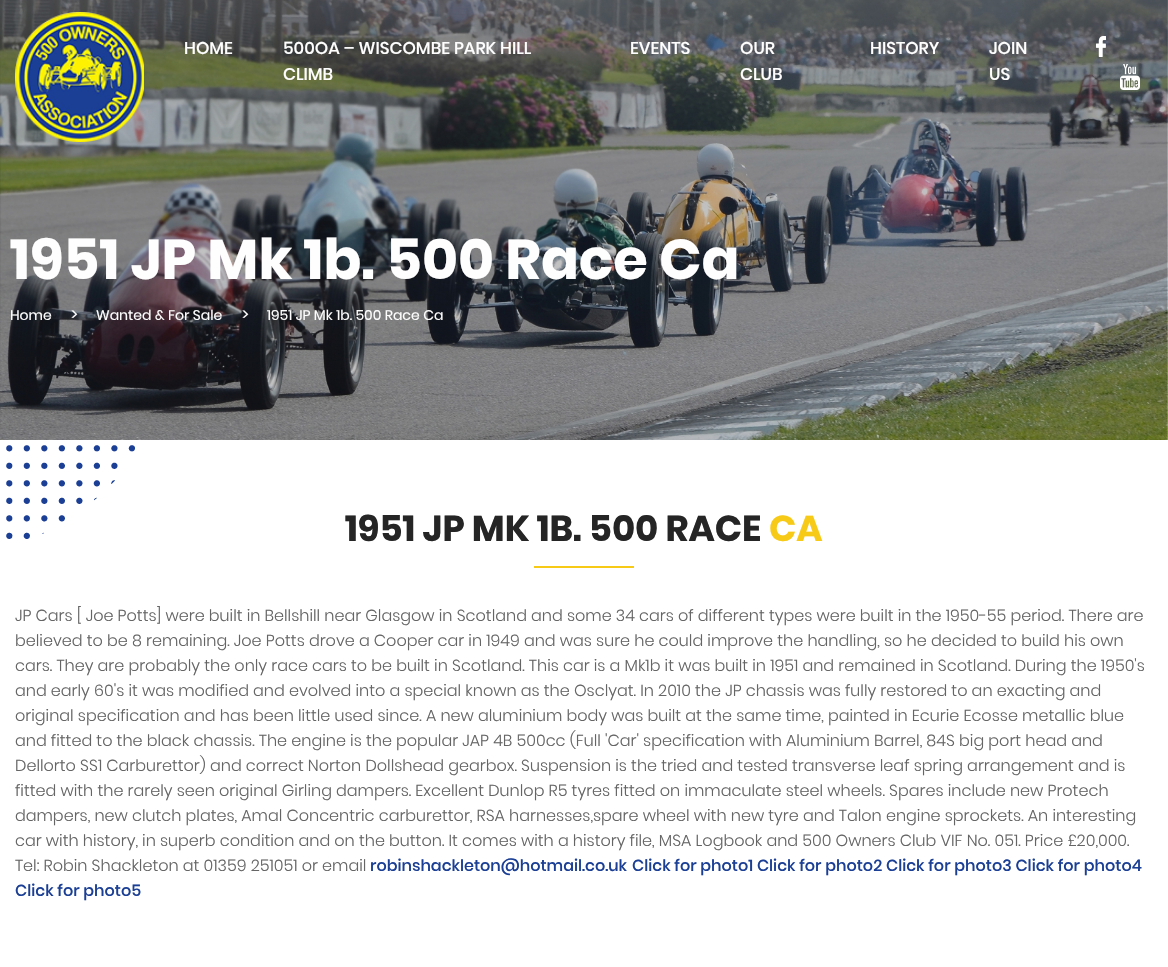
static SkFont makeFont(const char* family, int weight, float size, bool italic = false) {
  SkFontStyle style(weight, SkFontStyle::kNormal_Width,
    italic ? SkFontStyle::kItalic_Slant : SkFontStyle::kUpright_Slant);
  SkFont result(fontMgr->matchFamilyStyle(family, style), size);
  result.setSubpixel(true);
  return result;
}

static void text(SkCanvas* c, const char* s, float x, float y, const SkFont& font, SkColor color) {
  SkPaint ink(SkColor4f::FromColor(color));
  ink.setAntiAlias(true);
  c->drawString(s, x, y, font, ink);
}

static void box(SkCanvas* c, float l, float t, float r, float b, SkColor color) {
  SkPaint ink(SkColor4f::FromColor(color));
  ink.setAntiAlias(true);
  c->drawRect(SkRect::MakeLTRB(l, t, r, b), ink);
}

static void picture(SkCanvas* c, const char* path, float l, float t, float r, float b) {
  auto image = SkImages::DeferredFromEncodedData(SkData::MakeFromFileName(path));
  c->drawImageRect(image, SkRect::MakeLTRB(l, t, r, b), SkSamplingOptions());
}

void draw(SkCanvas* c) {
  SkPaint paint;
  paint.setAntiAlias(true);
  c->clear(0xffffffff);
  picture(c, "img_04.png", 0, 0, 1168, 440);
  picture(c, "img_01.png", 15, 12, 144, 142);
  SkFont face1 = makeFont("Poppins", 500, 17);
  text(c, "HOME", 184, 54, face1, 0xfffffefe);
  text(c, "500OA – WISCOMBE PARK HILL", 283, 54, face1, 0xfffffefe);
  text(c, "CLIMB", 283, 80, face1, 0xfffffefe);
  text(c, "EVENTS", 630, 54, face1, 0xfffffefe);
  text(c, "OUR", 740, 54, face1, 0xfffffefe);
  text(c, "CLUB", 740, 80, face1, 0xfffffefe);
  text(c, "HISTORY", 870, 54, face1, 0xfffffefe);
  text(c, "JOIN", 989, 54, face1, 0xfffffefe);
  text(c, "US", 989, 80, face1, 0xfffffefe);
  picture(c, "img_02.png", 1096, 36, 1106, 57);
  picture(c, "img_03.png", 1120, 64, 1140, 90);
  SkFont face2 = makeFont("Poppins", 700, 56);
  text(c, "1951 JP Mk 1b. 500 Race Ca", 10, 279, face2, 0xfffffefe);
  SkFont face3 = makeFont("Poppins", 400, 14);
  text(c, "Home", 10, 320, face3, 0xfffffefe);
  SkFont face4 = makeFont("Poppins", 400, 16);
  text(c, ">", 71, 320, face4, 0xfffffefe);
  text(c, "Wanted & For Sale", 96, 320, face3, 0xfffffefe);
  text(c, ">", 242, 320, face4, 0xfffffefe);
  text(c, "1951 JP Mk 1b. 500 Race Ca", 267, 320, face3, 0xfffffefe);
  picture(c, "img_05.png", 6, 445, 135, 539);
  SkFont face5 = makeFont("Poppins", 700, 36);
  text(c, "1951 JP MK 1B. 500 RACE", 345, 541, face5, 0xff252525);
  text(c, "CA", 769, 541, face5, 0xfff7ca18);
  box(c, 534, 566, 634, 568, 0xfff7ca18);
  SkFont face6 = makeFont("Poppins", 300, 16);
  text(c, "JP Cars [ Joe Potts] were built in Bellshill near Glasgow in Scotland and some 34 cars of different types were built in the 1950-55 period. There are", 15, 621, face6, 0xff656565);
  text(c, "believed to be 8 remaining. Joe Potts drove a Cooper car in 1949 and was sure he could improve the handling, so he decided to build his own", 15, 646, face6, 0xff656565);
  text(c, "cars. They are probably the only race cars to be built in Scotland. This car is a Mk1b it was built in 1951 and remained in Scotland. During the 1950's", 15, 671, face6, 0xff656565);
  text(c, "and early 60's it was modified and evolved into a special known as the Osclyat. In 2010 the JP chassis was fully restored to an exacting and", 15, 696, face6, 0xff656565);
  text(c, "original specification and has been little used since. A new aluminium body was built at the same time, painted in Ecurie Ecosse metallic blue", 15, 721, face6, 0xff656565);
  text(c, "and fitted to the black chassis. The engine is the popular JAP 4B 500cc (Full 'Car' specification with Aluminium Barrel, 84S big port head and", 15, 746, face6, 0xff656565);
  text(c, "Dellorto SS1 Carburettor) and correct Norton Dollshead gearbox. Suspension is the tried and tested transverse leaf spring arrangement and is", 15, 771, face6, 0xff656565);
  text(c, "fitted with the rarely seen original Girling dampers. Excellent Dunlop R5 tyres fitted on immaculate steel wheels. Spares include new Protech", 15, 796, face6, 0xff656565);
  text(c, "dampers, new clutch plates, Amal Concentric carburettor, RSA harnesses,spare wheel with new tyre and Talon engine sprockets. An interesting", 15, 821, face6, 0xff656565);
  text(c, "car with history, in superb condition and on the button. It comes with a history file, MSA Logbook and 500 Owners Club VIF No. 051. Price £20,000.", 15, 846, face6, 0xff656565);
  text(c, "Tel: Robin Shackleton at 01359 251051 or email", 15, 871, face6, 0xff656565);
  SkFont face7 = makeFont("Poppins", 500, 16);
  text(c, "robinshackleton@hotmail.co.uk", 370, 871, face7, 0xff1b3f95);
  text(c, "Click for photo1 Click for photo2 Click for photo3 Click for photo4", 632, 871, face7, 0xff1b3f95);
  text(c, "Click for photo5", 15, 896, face7, 0xff1b3f95);
}
